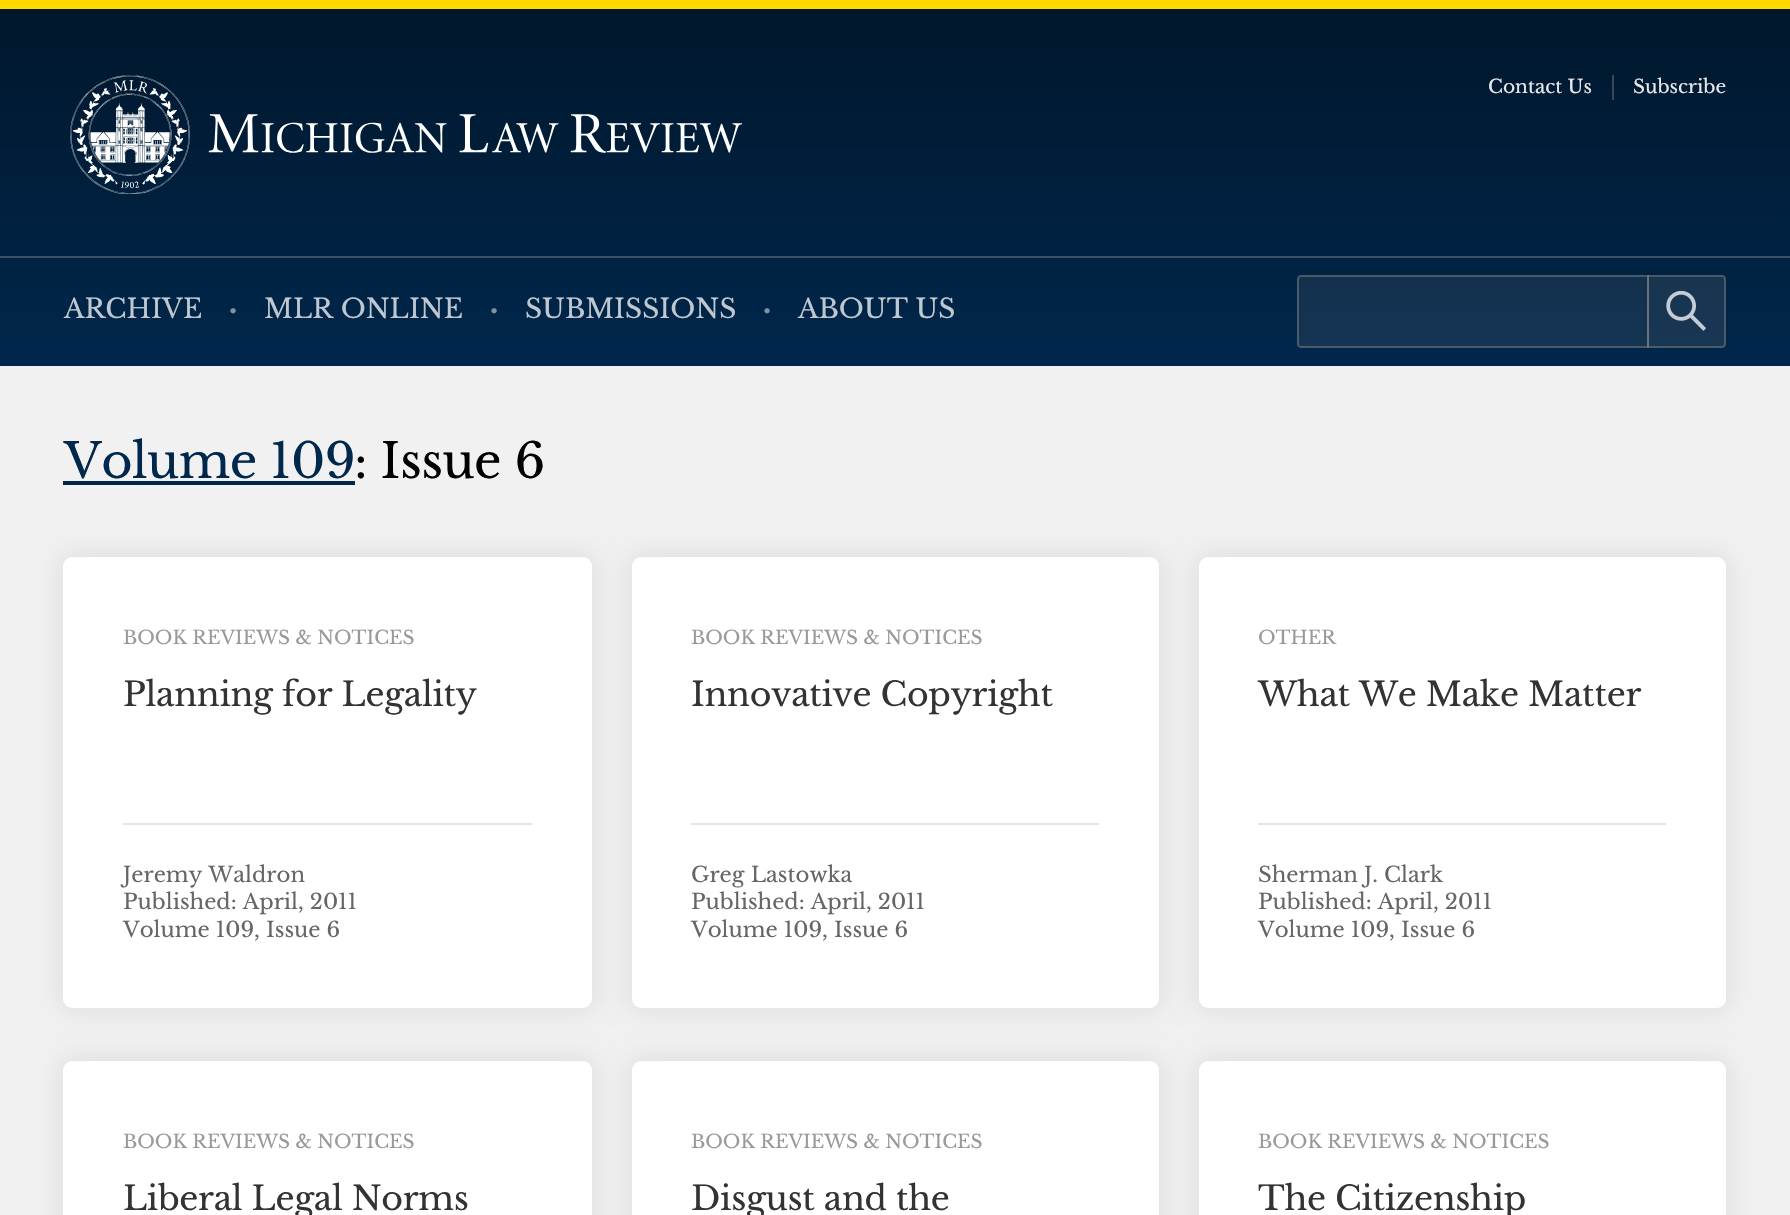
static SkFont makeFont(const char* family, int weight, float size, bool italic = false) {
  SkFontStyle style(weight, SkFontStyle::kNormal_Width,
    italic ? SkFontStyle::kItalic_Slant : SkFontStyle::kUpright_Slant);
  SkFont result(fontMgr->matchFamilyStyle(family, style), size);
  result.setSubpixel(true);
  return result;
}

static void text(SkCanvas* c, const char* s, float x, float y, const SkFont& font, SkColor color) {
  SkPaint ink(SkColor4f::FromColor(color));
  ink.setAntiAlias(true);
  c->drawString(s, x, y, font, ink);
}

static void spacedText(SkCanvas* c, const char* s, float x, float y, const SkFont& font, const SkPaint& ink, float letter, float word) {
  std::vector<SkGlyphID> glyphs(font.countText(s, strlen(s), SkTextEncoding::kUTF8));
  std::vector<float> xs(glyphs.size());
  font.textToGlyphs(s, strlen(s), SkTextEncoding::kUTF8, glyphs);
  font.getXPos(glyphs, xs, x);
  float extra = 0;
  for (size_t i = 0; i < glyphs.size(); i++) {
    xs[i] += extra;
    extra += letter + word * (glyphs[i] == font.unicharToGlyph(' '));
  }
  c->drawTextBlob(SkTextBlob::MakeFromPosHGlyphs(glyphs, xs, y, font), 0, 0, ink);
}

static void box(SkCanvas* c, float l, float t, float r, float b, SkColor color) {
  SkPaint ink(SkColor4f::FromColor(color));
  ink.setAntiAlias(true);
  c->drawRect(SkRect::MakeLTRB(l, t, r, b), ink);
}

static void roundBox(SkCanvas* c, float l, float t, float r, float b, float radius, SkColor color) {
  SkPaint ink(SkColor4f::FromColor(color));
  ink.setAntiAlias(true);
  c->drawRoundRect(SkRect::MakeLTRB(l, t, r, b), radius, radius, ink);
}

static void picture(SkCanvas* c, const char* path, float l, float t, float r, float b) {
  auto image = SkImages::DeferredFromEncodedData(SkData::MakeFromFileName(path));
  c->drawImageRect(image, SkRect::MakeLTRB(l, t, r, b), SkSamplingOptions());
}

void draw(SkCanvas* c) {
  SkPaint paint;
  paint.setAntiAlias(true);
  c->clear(0xfff1f1f1);
  {
    const SkColor colors[] = {0xff00172c, 0xff00274c};
    const float stops[] = {0, 1};
    const SkPoint ends[] = {{895, 9}, {895, 366}};
    paint.setShader(SkGradientShader::MakeLinear(ends, colors, stops, 2, SkTileMode::kClamp));
    paint.setAlpha(255);
  }
  c->drawRect(SkRect::MakeLTRB(0, 9, 1790, 366), paint);
  box(c, 0, 0, 1790, 9, 0xffffda00);
  picture(c, "img_01.png", 70, 75, 743, 194);
  box(c, 0, 256, 1790, 258, 0xff405161);
  SkFont face1 = makeFont("Libre Baskerville", 400, 18.6f);
  text(c, "Contact Us", 1488, 93, face1, 0xffe6e8eb);
  box(c, 1612, 75, 1614, 100, 0xff3a4856);
  text(c, "Subscribe", 1633, 93, face1, 0xffe6e8eb);
  SkFont face2 = makeFont("Libre Baskerville", 400, 26.5f);
  text(c, "ARCHIVE", 64, 318, face2, 0xffbfc8d1);
  SkFont face3 = makeFont("Libre Baskerville", 400, 17);
  text(c, "•", 229, 317, face3, 0xff8092a3);
  text(c, "MLR ONLINE", 264, 318, face2, 0xffbfc8d1);
  text(c, "•", 490, 317, face3, 0xff8092a3);
  text(c, "SUBMISSIONS", 525, 318, face2, 0xffbfc8d1);
  text(c, "•", 763, 317, face3, 0xff8092a3);
  text(c, "ABOUT US", 798, 318, face2, 0xffbfc8d1);
  paint.setShader(nullptr);
  paint.setColor(0x26808080);
  c->drawPath(SkPathBuilder().moveTo(1301, 275).lineTo(1649, 275).lineTo(1649, 348).lineTo(1301, 348).cubicTo(1299, 348, 1297, 346, 1297, 344).lineTo(1297, 279).cubicTo(1297, 277, 1299, 275, 1301, 275).close().detach(), paint);
  paint.setStyle(SkPaint::kStroke_Style);
  paint.setStrokeWidth(2);
  paint.setColor(0x80808080);
  c->drawPath(SkPathBuilder().moveTo(1301, 276).lineTo(1648, 276).lineTo(1648, 347).lineTo(1301, 347).cubicTo(1299.5f, 347, 1298, 345.5f, 1298, 344).lineTo(1298, 279).cubicTo(1298, 277.5f, 1299.5f, 276, 1301, 276).close().detach(), paint);
  paint.setStyle(SkPaint::kFill_Style);
  paint.setColor(0x30808080);
  c->drawPath(SkPathBuilder().moveTo(1647, 275).lineTo(1722, 275).cubicTo(1724, 275, 1726, 277, 1726, 279).lineTo(1726, 344).cubicTo(1726, 346, 1724, 348, 1722, 348).lineTo(1647, 348).close().detach(), paint);
  picture(c, "img_02.png", 1666, 291, 1706, 331);
  paint.setStyle(SkPaint::kStroke_Style);
  paint.setColor(0x7d808080);
  c->drawPath(SkPathBuilder().moveTo(1648, 276).lineTo(1722, 276).cubicTo(1723.5f, 276, 1725, 277.5f, 1725, 279).lineTo(1725, 344).cubicTo(1725, 345.5f, 1723.5f, 347, 1722, 347).lineTo(1648, 347).close().detach(), paint);
  SkFont face4 = makeFont("Libre Baskerville", 400, 48);
  paint.setStyle(SkPaint::kFill_Style);
  paint.setColor(0xff00274c);
  spacedText(c, "Volume 109", 64, 478, face4, paint, -0.5f, 0);
  box(c, 63, 481, 355, 485, 0xff00274c);
  paint.setColor(0xff000000);
  spacedText(c, ": Issue 6", 354, 478, face4, paint, -0.5f, 0);
  paint.setColor(0x1a000000);
  paint.setMaskFilter(SkMaskFilter::MakeBlur(kNormal_SkBlurStyle, 13.5f));
  c->drawRoundRect(SkRect::MakeLTRB(63, 557, 592, 1008), 9, 9, paint);
  paint.setMaskFilter(nullptr);
  roundBox(c, 63, 557, 592, 1008, 9, 0xffffffff);
  text(c, "BOOK REVIEWS & NOTICES", 123, 644, face1, 0xff999999);
  SkFont face5 = makeFont("Libre Baskerville", 400, 33.25f);
  paint.setColor(0xff333333);
  spacedText(c, "Planning for Legality", 123, 706, face5, paint, -0.3f, 0);
  box(c, 123, 823, 532, 825, 0xffe4e4e4);
  SkFont face6 = makeFont("Libre Baskerville", 400, 21.25f);
  text(c, "Jeremy Waldron", 123, 882, face6, 0xff666666);
  text(c, "Published: April, 2011", 123, 909, face6, 0xff666666);
  text(c, "Volume 109, Issue 6", 123, 937, face6, 0xff666666);
  paint.setColor(0x1a000000);
  paint.setMaskFilter(SkMaskFilter::MakeBlur(kNormal_SkBlurStyle, 13.5f));
  c->drawRoundRect(SkRect::MakeLTRB(632, 557, 1159, 1008), 9, 9, paint);
  paint.setMaskFilter(nullptr);
  roundBox(c, 632, 557, 1159, 1008, 9, 0xffffffff);
  text(c, "BOOK REVIEWS & NOTICES", 691, 644, face1, 0xff999999);
  paint.setColor(0xff333333);
  spacedText(c, "Innovative Copyright", 691, 706, face5, paint, -0.3f, 0);
  box(c, 691, 823, 1099, 825, 0xffe4e4e4);
  text(c, "Greg Lastowka", 691, 882, face6, 0xff666666);
  text(c, "Published: April, 2011", 691, 909, face6, 0xff666666);
  text(c, "Volume 109, Issue 6", 691, 937, face6, 0xff666666);
  paint.setColor(0x1a000000);
  paint.setMaskFilter(SkMaskFilter::MakeBlur(kNormal_SkBlurStyle, 13.5f));
  c->drawRoundRect(SkRect::MakeLTRB(1199, 557, 1726, 1008), 9, 9, paint);
  paint.setMaskFilter(nullptr);
  roundBox(c, 1199, 557, 1726, 1008, 9, 0xffffffff);
  text(c, "OTHER", 1258, 644, face1, 0xff999999);
  paint.setColor(0xff333333);
  spacedText(c, "What We Make Matter", 1258, 706, face5, paint, -0.3f, 0);
  box(c, 1258, 823, 1666, 825, 0xffe4e4e4);
  text(c, "Sherman J. Clark", 1258, 882, face6, 0xff666666);
  text(c, "Published: April, 2011", 1258, 909, face6, 0xff666666);
  text(c, "Volume 109, Issue 6", 1258, 937, face6, 0xff666666);
  paint.setColor(0x1a000000);
  paint.setMaskFilter(SkMaskFilter::MakeBlur(kNormal_SkBlurStyle, 13.5f));
  c->drawRoundRect(SkRect::MakeLTRB(63, 1061, 592, 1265), 9, 9, paint);
  paint.setMaskFilter(nullptr);
  roundBox(c, 63, 1061, 592, 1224, 9, 0xffffffff);
  text(c, "BOOK REVIEWS & NOTICES", 123, 1148, face1, 0xff999999);
  paint.setColor(0xff333333);
  spacedText(c, "Liberal Legal Norms", 123, 1210, face5, paint, -0.3f, 0);
  paint.setColor(0x1a000000);
  paint.setMaskFilter(SkMaskFilter::MakeBlur(kNormal_SkBlurStyle, 13.5f));
  c->drawRoundRect(SkRect::MakeLTRB(632, 1061, 1159, 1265), 9, 9, paint);
  paint.setMaskFilter(nullptr);
  roundBox(c, 632, 1061, 1159, 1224, 9, 0xffffffff);
  text(c, "BOOK REVIEWS & NOTICES", 691, 1148, face1, 0xff999999);
  paint.setColor(0xff333333);
  spacedText(c, "Disgust and the", 691, 1210, face5, paint, -0.3f, 0);
  paint.setColor(0x1a000000);
  paint.setMaskFilter(SkMaskFilter::MakeBlur(kNormal_SkBlurStyle, 13.5f));
  c->drawRoundRect(SkRect::MakeLTRB(1199, 1061, 1726, 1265), 9, 9, paint);
  paint.setMaskFilter(nullptr);
  roundBox(c, 1199, 1061, 1726, 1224, 9, 0xffffffff);
  text(c, "BOOK REVIEWS & NOTICES", 1258, 1148, face1, 0xff999999);
  paint.setColor(0xff333333);
  spacedText(c, "The Citizenship", 1258, 1210, face5, paint, -0.3f, 0);
}
